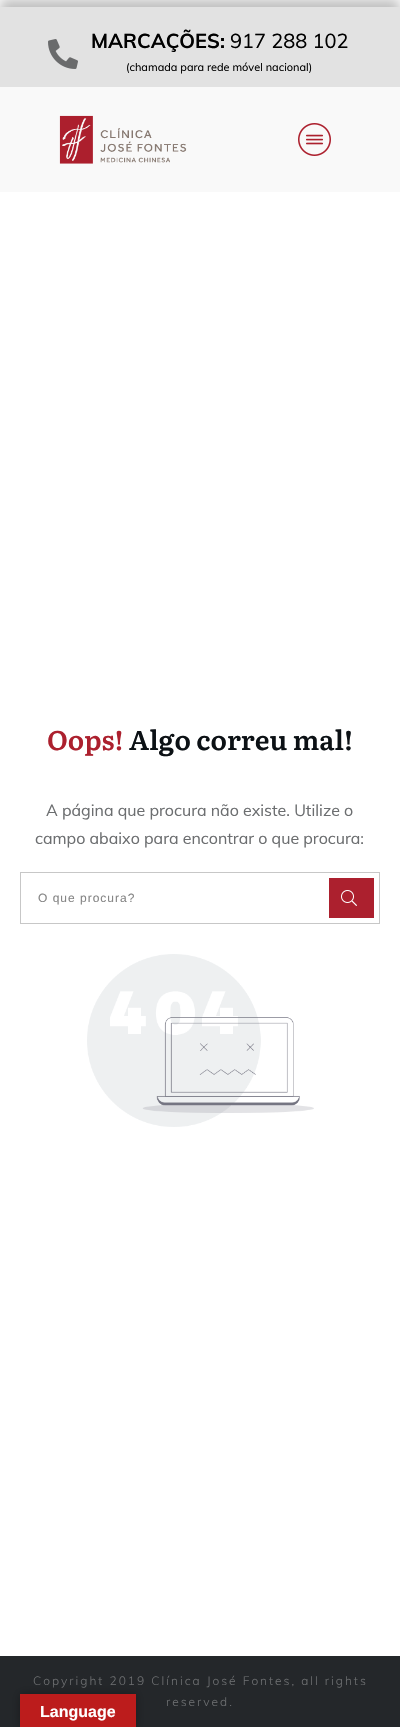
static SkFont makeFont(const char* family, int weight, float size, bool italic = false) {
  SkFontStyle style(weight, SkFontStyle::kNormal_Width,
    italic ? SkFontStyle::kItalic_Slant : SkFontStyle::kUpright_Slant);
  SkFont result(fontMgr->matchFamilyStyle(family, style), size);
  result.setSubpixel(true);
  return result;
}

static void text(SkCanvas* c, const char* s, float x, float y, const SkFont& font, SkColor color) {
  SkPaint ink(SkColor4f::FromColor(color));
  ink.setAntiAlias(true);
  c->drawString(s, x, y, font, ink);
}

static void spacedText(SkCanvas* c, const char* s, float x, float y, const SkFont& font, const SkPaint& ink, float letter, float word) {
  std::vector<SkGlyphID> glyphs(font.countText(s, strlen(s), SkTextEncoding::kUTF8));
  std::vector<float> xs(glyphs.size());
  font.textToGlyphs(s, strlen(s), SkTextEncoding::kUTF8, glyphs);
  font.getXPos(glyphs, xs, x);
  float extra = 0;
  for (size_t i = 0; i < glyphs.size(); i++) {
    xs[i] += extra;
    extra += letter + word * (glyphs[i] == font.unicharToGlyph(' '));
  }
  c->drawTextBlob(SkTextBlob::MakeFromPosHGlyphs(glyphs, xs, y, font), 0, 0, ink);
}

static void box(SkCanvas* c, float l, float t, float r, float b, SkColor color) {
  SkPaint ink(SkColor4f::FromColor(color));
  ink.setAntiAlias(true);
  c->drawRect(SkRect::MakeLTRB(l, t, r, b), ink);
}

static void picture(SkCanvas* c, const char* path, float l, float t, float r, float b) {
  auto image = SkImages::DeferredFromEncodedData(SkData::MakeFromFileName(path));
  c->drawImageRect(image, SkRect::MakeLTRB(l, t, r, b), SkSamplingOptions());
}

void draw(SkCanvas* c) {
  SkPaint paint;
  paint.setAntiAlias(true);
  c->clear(0xffffffff);
  paint.setColor(0x40000000);
  paint.setMaskFilter(SkMaskFilter::MakeBlur(kNormal_SkBlurStyle, 6));
  c->drawRect(SkRect::MakeLTRB(0, -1, 400, 149), paint);
  paint.setMaskFilter(nullptr);
  box(c, 0, 7, 400, 87, 0xffe2e2e2);
  picture(c, "img_01.png", 48, 39, 78, 69);
  SkFont face1 = makeFont("Muli", 700, 20);
  text(c, "MARCAÇÕES:", 91, 48, face1, 0xff000000);
  SkFont face2 = makeFont("Muli", 400, 20);
  text(c, "917 288 102", 230, 48, face2, 0xff000000);
  SkFont face3 = makeFont("Muli", 400, 11);
  text(c, "(chamada para rede móvel nacional)", 126, 71, face3, 0xff000000);
  box(c, 0, 87, 400, 192, 0xfff9f9f9);
  picture(c, "img_02.png", 59, 115, 187, 164);
  picture(c, "img_03.png", 298, 123, 331, 156);
  SkFont face4 = makeFont("Literata", 600, 27);
  text(c, "Oops!", 47, 750, face4, 0xffac202e);
  text(c, "Algo correu mal!", 129, 750, face4, 0xff0c1115);
  SkFont face5 = makeFont("Muli", 400, 16);
  text(c, "A página que procura não existe. Utilize o", 46, 816, face5, 0xff6c6e70);
  text(c, "campo abaixo para encontrar o que procura:", 35, 844, face5, 0xff6c6e70);
  paint.setStyle(SkPaint::kStroke_Style);
  paint.setStrokeWidth(1);
  paint.setColor(0xffc7c7c7);
  c->drawRect(SkRect::MakeLTRB(20.5f, 872.5f, 379.5f, 923.5f), paint);
  SkFont face6 = makeFont("Liberation Sans", 400, 12);
  paint.setStyle(SkPaint::kFill_Style);
  paint.setColor(0xff858585);
  spacedText(c, "O que procura?", 38, 902, face6, paint, 1, 0);
  box(c, 329, 878, 374, 918, 0xffac202e);
  picture(c, "img_04.png", 341, 890, 357, 906);
  picture(c, "img_05.png", 87, 954, 314, 1127);
  box(c, 0, 1656, 400, 1727, 0xff24272a);
  SkFont face7 = makeFont("Muli", 300, 12);
  paint.setColor(0xff6c6e70);
  spacedText(c, "Copyright 2019 Clínica José Fontes, all rights", 33, 1685, face7, paint, 2, 0);
  spacedText(c, "reserved.", 166, 1706, face7, paint, 2, 0);
  paint.setColor(0x4d000000);
  paint.setMaskFilter(SkMaskFilter::MakeBlur(kNormal_SkBlurStyle, 4.5f));
  c->drawRect(SkRect::MakeLTRB(20, 1694, 136, 1727), paint);
  paint.setMaskFilter(nullptr);
  box(c, 20, 1694, 136, 1727, 0xffbc1c1c);
  SkFont face8 = makeFont("Liberation Sans", 700, 16);
  text(c, "Language", 40, 1717, face8, 0xffffffff);
}
